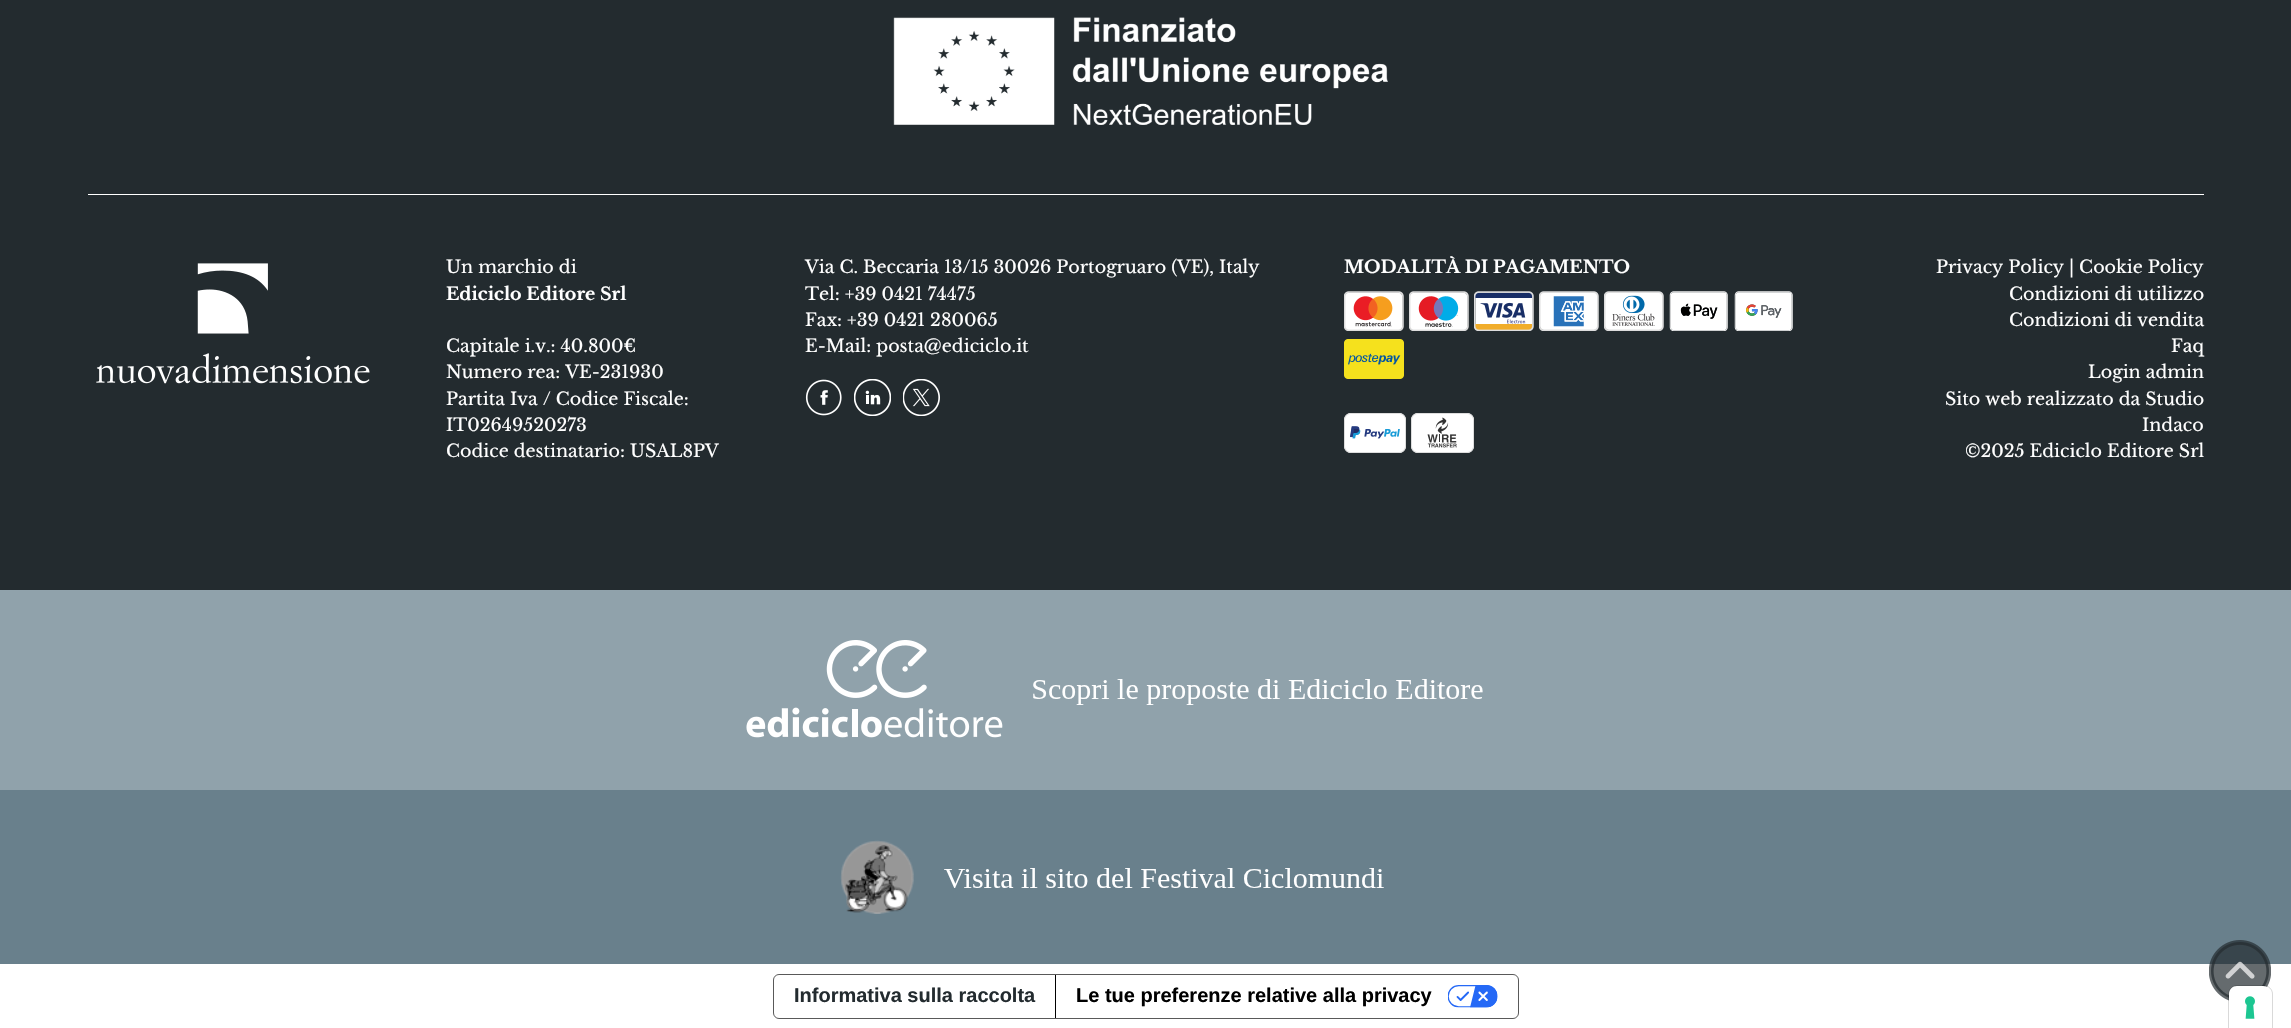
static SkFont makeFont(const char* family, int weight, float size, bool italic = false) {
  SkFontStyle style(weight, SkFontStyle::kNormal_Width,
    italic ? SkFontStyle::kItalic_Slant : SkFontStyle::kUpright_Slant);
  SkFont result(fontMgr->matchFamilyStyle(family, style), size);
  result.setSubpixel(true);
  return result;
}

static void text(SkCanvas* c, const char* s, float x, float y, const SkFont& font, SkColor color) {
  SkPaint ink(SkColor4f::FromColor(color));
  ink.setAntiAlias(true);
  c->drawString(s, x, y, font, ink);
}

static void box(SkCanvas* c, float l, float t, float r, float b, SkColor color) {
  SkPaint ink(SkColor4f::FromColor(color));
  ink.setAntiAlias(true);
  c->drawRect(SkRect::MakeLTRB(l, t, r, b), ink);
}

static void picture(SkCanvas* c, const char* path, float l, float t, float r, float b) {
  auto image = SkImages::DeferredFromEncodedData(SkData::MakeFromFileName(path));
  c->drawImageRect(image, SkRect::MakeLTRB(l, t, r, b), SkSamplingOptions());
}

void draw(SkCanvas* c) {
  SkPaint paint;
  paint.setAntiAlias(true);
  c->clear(0xffffffff);
  box(c, 0, 0, 2291, 590, 0xff232b2f);
  box(c, 88, 194, 2204, 195, 0xffffffff);
  picture(c, "img_01.png", 893, 17, 1388, 125);
  picture(c, "img_02.png", 96, 263, 370, 384);
  SkFont face1 = makeFont("Libre Baskerville", 400, 17.5f);
  text(c, "Un marchio di", 446, 273, face1, 0xffffffff);
  SkFont face2 = makeFont("Libre Baskerville", 700, 17.5f);
  text(c, "Ediciclo Editore Srl", 446, 300, face2, 0xffffffff);
  text(c, "Capitale i.v.: 40.800€", 446, 352, face1, 0xffffffff);
  text(c, "Numero rea: VE-231930", 446, 378, face1, 0xffffffff);
  text(c, "Partita Iva / Codice Fiscale:", 446, 405, face1, 0xffffffff);
  text(c, "IT02649520273", 446, 431, face1, 0xffffffff);
  text(c, "Codice destinatario: USAL8PV", 446, 457, face1, 0xffffffff);
  text(c, "Via C. Beccaria 13/15 30026 Portogruaro (VE), Italy", 805, 273, face1, 0xffffffff);
  text(c, "Tel: +39 0421 74475", 805, 300, face1, 0xffffffff);
  text(c, "Fax: +39 0421 280065", 805, 326, face1, 0xffffffff);
  text(c, "E-Mail: posta@ediciclo.it", 805, 352, face1, 0xffffffff);
  picture(c, "img_03.png", 805, 379, 842, 416);
  picture(c, "img_04.png", 854, 379, 891, 416);
  picture(c, "img_05.png", 903, 379, 940, 416);
  text(c, "MODALITÀ DI PAGAMENTO", 1344, 273, face2, 0xffffffff);
  picture(c, "img_06.png", 1344, 291, 1404, 331);
  picture(c, "img_07.png", 1409, 291, 1469, 331);
  picture(c, "img_08.png", 1474, 291, 1534, 331);
  picture(c, "img_09.png", 1539, 291, 1599, 331);
  picture(c, "img_10.png", 1604, 291, 1664, 331);
  picture(c, "img_11.png", 1669, 291, 1728, 331);
  picture(c, "img_12.png", 1734, 291, 1793, 331);
  picture(c, "img_13.png", 1344, 339, 1404, 379);
  picture(c, "img_14.png", 1344, 413, 1406, 453);
  picture(c, "img_15.png", 1411, 413, 1474, 453);
  text(c, "Privacy Policy | Cookie Policy", 1936, 273, face1, 0xffffffff);
  text(c, "Condizioni di utilizzo", 2009, 300, face1, 0xffffffff);
  text(c, "Condizioni di vendita", 2009, 326, face1, 0xffffffff);
  text(c, "Faq", 2171, 352, face1, 0xffffffff);
  text(c, "Login admin", 2088, 378, face1, 0xffffffff);
  text(c, "Sito web realizzato da Studio", 1945, 405, face1, 0xffffffff);
  text(c, "Indaco", 2142, 431, face1, 0xffffffff);
  text(c, "©2025 Ediciclo Editore Srl", 1965, 457, face1, 0xffffffff);
  box(c, 0, 790, 2291, 964, 0xff69808c);
  picture(c, "img_16.png", 2209, 940, 2271, 1001);
  box(c, 0, 590, 2291, 790, 0xff90a2ab);
  picture(c, "img_17.png", 746, 640, 1003, 738);
  picture(c, "img_18.png", 1033, 679, 1483, 705);
  picture(c, "img_19.png", 840, 840, 914, 914);
  picture(c, "img_20.png", 944, 868, 1384, 888);
  paint.setStyle(SkPaint::kStroke_Style);
  paint.setStrokeWidth(1);
  paint.setColor(0xff595959);
  c->drawRoundRect(SkRect::MakeLTRB(773.5f, 974.5f, 1518.5f, 1018.5f), 5.5f, 5.5f, paint);
  SkFont face3 = makeFont("Liberation Sans", 700, 20);
  text(c, "Informativa sulla raccolta", 794, 1002, face3, 0xff232b2f);
  box(c, 1055, 975, 1056, 1018, 0xff000000);
  text(c, "Le tue preferenze relative alla privacy", 1076, 1002, face3, 0xff000000);
  picture(c, "img_21.png", 1448, 985, 1498, 1008);
  paint.setColor(0x26000000);
  c->drawPath(SkPathBuilder().moveTo(2237, 985.5f).lineTo(2264, 985.5f).cubicTo(2268.5f, 985.5f, 2272.5f, 989.5f, 2272.5f, 994).lineTo(2272.5f, 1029.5f).lineTo(2228.5f, 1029.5f).lineTo(2228.5f, 994).cubicTo(2228.5f, 989.5f, 2232.5f, 985.5f, 2237, 985.5f).close().detach(), paint);
  paint.setStyle(SkPaint::kFill_Style);
  paint.setColor(0xffffffff);
  c->drawPath(SkPathBuilder().moveTo(2237, 986).lineTo(2263, 986).cubicTo(2267.5f, 986, 2271, 989.5f, 2271, 994).lineTo(2271, 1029).lineTo(2229, 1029).lineTo(2229, 994).cubicTo(2229, 989.5f, 2232.5f, 986, 2237, 986).close().detach(), paint);
  picture(c, "img_22.png", 2245, 996, 2255, 1019);
}
